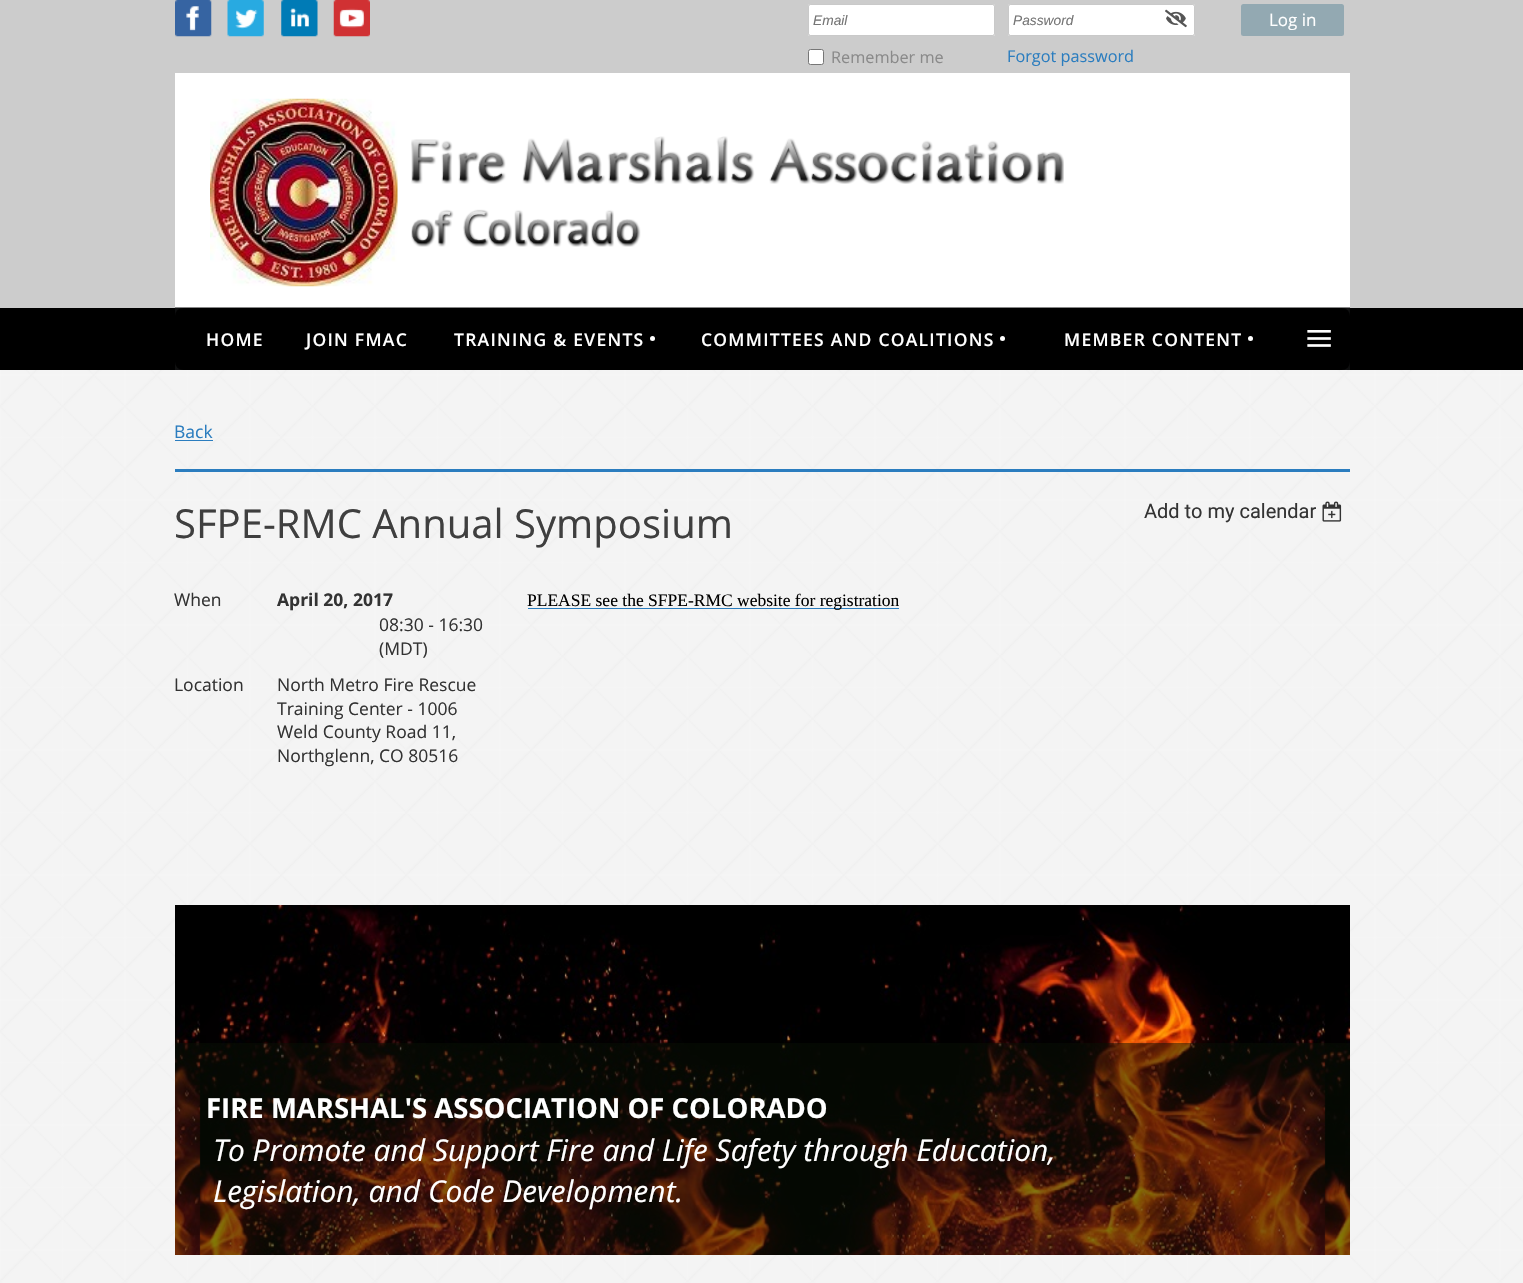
static SkFont makeFont(const char* family, int weight, float size, bool italic = false) {
  SkFontStyle style(weight, SkFontStyle::kNormal_Width,
    italic ? SkFontStyle::kItalic_Slant : SkFontStyle::kUpright_Slant);
  SkFont result(fontMgr->matchFamilyStyle(family, style), size);
  result.setSubpixel(true);
  return result;
}

static void text(SkCanvas* c, const char* s, float x, float y, const SkFont& font, SkColor color) {
  SkPaint ink(SkColor4f::FromColor(color));
  ink.setAntiAlias(true);
  c->drawString(s, x, y, font, ink);
}

static void spacedText(SkCanvas* c, const char* s, float x, float y, const SkFont& font, const SkPaint& ink, float letter, float word) {
  std::vector<SkGlyphID> glyphs(font.countText(s, strlen(s), SkTextEncoding::kUTF8));
  std::vector<float> xs(glyphs.size());
  font.textToGlyphs(s, strlen(s), SkTextEncoding::kUTF8, glyphs);
  font.getXPos(glyphs, xs, x);
  float extra = 0;
  for (size_t i = 0; i < glyphs.size(); i++) {
    xs[i] += extra;
    extra += letter + word * (glyphs[i] == font.unicharToGlyph(' '));
  }
  c->drawTextBlob(SkTextBlob::MakeFromPosHGlyphs(glyphs, xs, y, font), 0, 0, ink);
}

static void box(SkCanvas* c, float l, float t, float r, float b, SkColor color) {
  SkPaint ink(SkColor4f::FromColor(color));
  ink.setAntiAlias(true);
  c->drawRect(SkRect::MakeLTRB(l, t, r, b), ink);
}

static void roundBox(SkCanvas* c, float l, float t, float r, float b, float radius, SkColor color) {
  SkPaint ink(SkColor4f::FromColor(color));
  ink.setAntiAlias(true);
  c->drawRoundRect(SkRect::MakeLTRB(l, t, r, b), radius, radius, ink);
}

static void picture(SkCanvas* c, const char* path, float l, float t, float r, float b) {
  auto image = SkImages::DeferredFromEncodedData(SkData::MakeFromFileName(path));
  c->drawImageRect(image, SkRect::MakeLTRB(l, t, r, b), SkSamplingOptions());
}

void draw(SkCanvas* c) {
  SkPaint paint;
  paint.setAntiAlias(true);
  c->clear(0xffffffff);
  picture(c, "img_01.png", 0, 370, 1523, 1283);
  box(c, 0, 0, 1523, 308, 0xffcccccc);
  box(c, 175, 73, 1350, 308, 0xffffffff);
  picture(c, "img_02.png", 175, 0, 212, 37);
  picture(c, "img_03.png", 227, 0, 264, 37);
  picture(c, "img_04.png", 281, 0, 318, 37);
  picture(c, "img_05.png", 333, 0, 370, 37);
  roundBox(c, 808, 4, 995, 36, 2.5f, 0xffffffff);
  paint.setStyle(SkPaint::kStroke_Style);
  paint.setStrokeWidth(1);
  paint.setColor(0x36000000);
  c->drawRoundRect(SkRect::MakeLTRB(808.5f, 4.5f, 994.5f, 35.5f), 2, 2, paint);
  SkFont face1 = makeFont("Liberation Sans", 400, 13.75f, true);
  text(c, "Email", 813, 25, face1, 0xff757575);
  roundBox(c, 1008, 4, 1195, 36, 2.5f, 0xffffffff);
  c->drawRoundRect(SkRect::MakeLTRB(1008.5f, 4.5f, 1194.5f, 35.5f), 2, 2, paint);
  text(c, "Password", 1013, 25, face1, 0xff757575);
  picture(c, "img_06.png", 1165, 9, 1187, 28);
  roundBox(c, 1241, 4, 1344, 36, 2.5f, 0xff93a9b2);
  SkFont face2 = makeFont("Open Sans", 400, 17);
  text(c, "Log in", 1269, 26, face2, 0xffffffff);
  paint.setStyle(SkPaint::kFill_Style);
  paint.setColor(0xffffffff);
  c->drawRoundRect(SkRect::MakeLTRB(808.5f, 49.5f, 823.5f, 64.5f), 2, 2, paint);
  paint.setStyle(SkPaint::kStroke_Style);
  paint.setColor(0xff767676);
  c->drawRoundRect(SkRect::MakeLTRB(808.5f, 49.5f, 823.5f, 64.5f), 2, 2, paint);
  SkFont face3 = makeFont("Open Sans", 400, 16.25f);
  text(c, "Remember me", 831, 63, face3, 0xff8a8a8a);
  text(c, "Forgot password", 1007, 62, face3, 0xff2b7dbf);
  picture(c, "img_07.png", 210, 98, 398, 287);
  picture(c, "img_08.png", 411, 136, 1064, 184);
  picture(c, "img_09.png", 411, 209, 641, 247);
  box(c, 0, 308, 1523, 370, 0xff000000);
  picture(c, "img_10.png", 175, 307, 1350, 370);
  roundBox(c, 175, 308, 1350, 370, 8, 0xff000000);
  SkFont face4 = makeFont("Open Sans", 600, 17.5f);
  paint.setStyle(SkPaint::kFill_Style);
  paint.setColor(0xffffffff);
  spacedText(c, "HOME", 206, 346, face4, paint, 1.25f, 0);
  spacedText(c, "JOIN FMAC", 306, 346, face4, paint, 1.25f, 0);
  spacedText(c, "TRAINING & EVENTS", 454, 346, face4, paint, 1.25f, 0);
  c->drawCircle(652.5f, 338.5f, 2.5f, paint);
  spacedText(c, "COMMITTEES AND COALITIONS", 701, 346, face4, paint, 1.25f, 0);
  c->drawCircle(1002.5f, 338.5f, 2.5f, paint);
  spacedText(c, "MEMBER CONTENT", 1064, 346, face4, paint, 1.25f, 0);
  c->drawCircle(1250.5f, 338.5f, 2.5f, paint);
  SkFont face5 = makeFont("Liberation Serif", 400, 50);
  spacedText(c, "≡", 1305, 355, face5, paint, 1.25f, 0);
  box(c, 175, 469, 1350, 472, 0xff2b7dbf);
  SkFont face6 = makeFont("Open Sans", 400, 17.5f);
  text(c, "Back", 174, 438, face6, 0xff2b7dbf);
  box(c, 175, 440, 213, 441, 0xff2b7dbf);
  SkFont face7 = makeFont("Open Sans", 400, 40);
  text(c, "SFPE-RMC Annual Symposium", 174, 538, face7, 0xff3f3f3f);
  SkFont face8 = makeFont("Roboto", 400, 20);
  text(c, "Add to my calendar", 1144, 518, face8, 0xff333333);
  picture(c, "img_11.png", 1322, 501, 1342, 522);
  text(c, "When", 174, 606, face6, 0xff333333);
  SkFont face9 = makeFont("Open Sans", 700, 17.5f);
  text(c, "April 20, 2017", 277, 606, face9, 0xff333333);
  text(c, "08:30 - 16:30", 379, 631, face6, 0xff333333);
  text(c, "(MDT)", 379, 655, face6, 0xff333333);
  text(c, "Location", 174, 691, face6, 0xff333333);
  text(c, "North Metro Fire Rescue", 277, 691, face6, 0xff333333);
  text(c, "Training Center - 1006", 277, 715, face6, 0xff333333);
  text(c, "Weld County Road 11,", 277, 738, face6, 0xff333333);
  text(c, "Northglenn, CO 80516", 277, 762, face6, 0xff333333);
  box(c, 528, 608, 899, 609, 0xff2b7dbf);
  SkFont face10 = makeFont("Liberation Serif", 400, 17.5f);
  text(c, "PLEASE see the SFPE-RMC website for registration", 527, 606, face10, 0xff000000);
  picture(c, "img_12.png", 175, 905, 1350, 1255);
  box(c, 175, 1043, 1350, 1255, 0x80070f03);
  SkFont face11 = makeFont("Open Sans", 700, 27.5f);
  text(c, "FIRE MARSHAL'S ASSOCIATION OF COLORADO", 206, 1118, face11, 0xffffffff);
  SkFont face12 = makeFont("Open Sans", 400, 30, true);
  text(c, "To Promote and Support Fire and Life Safety through Education,", 213, 1161, face12, 0xffffffff);
  text(c, "Legislation, and Code Development.", 213, 1202, face12, 0xffffffff);
}
